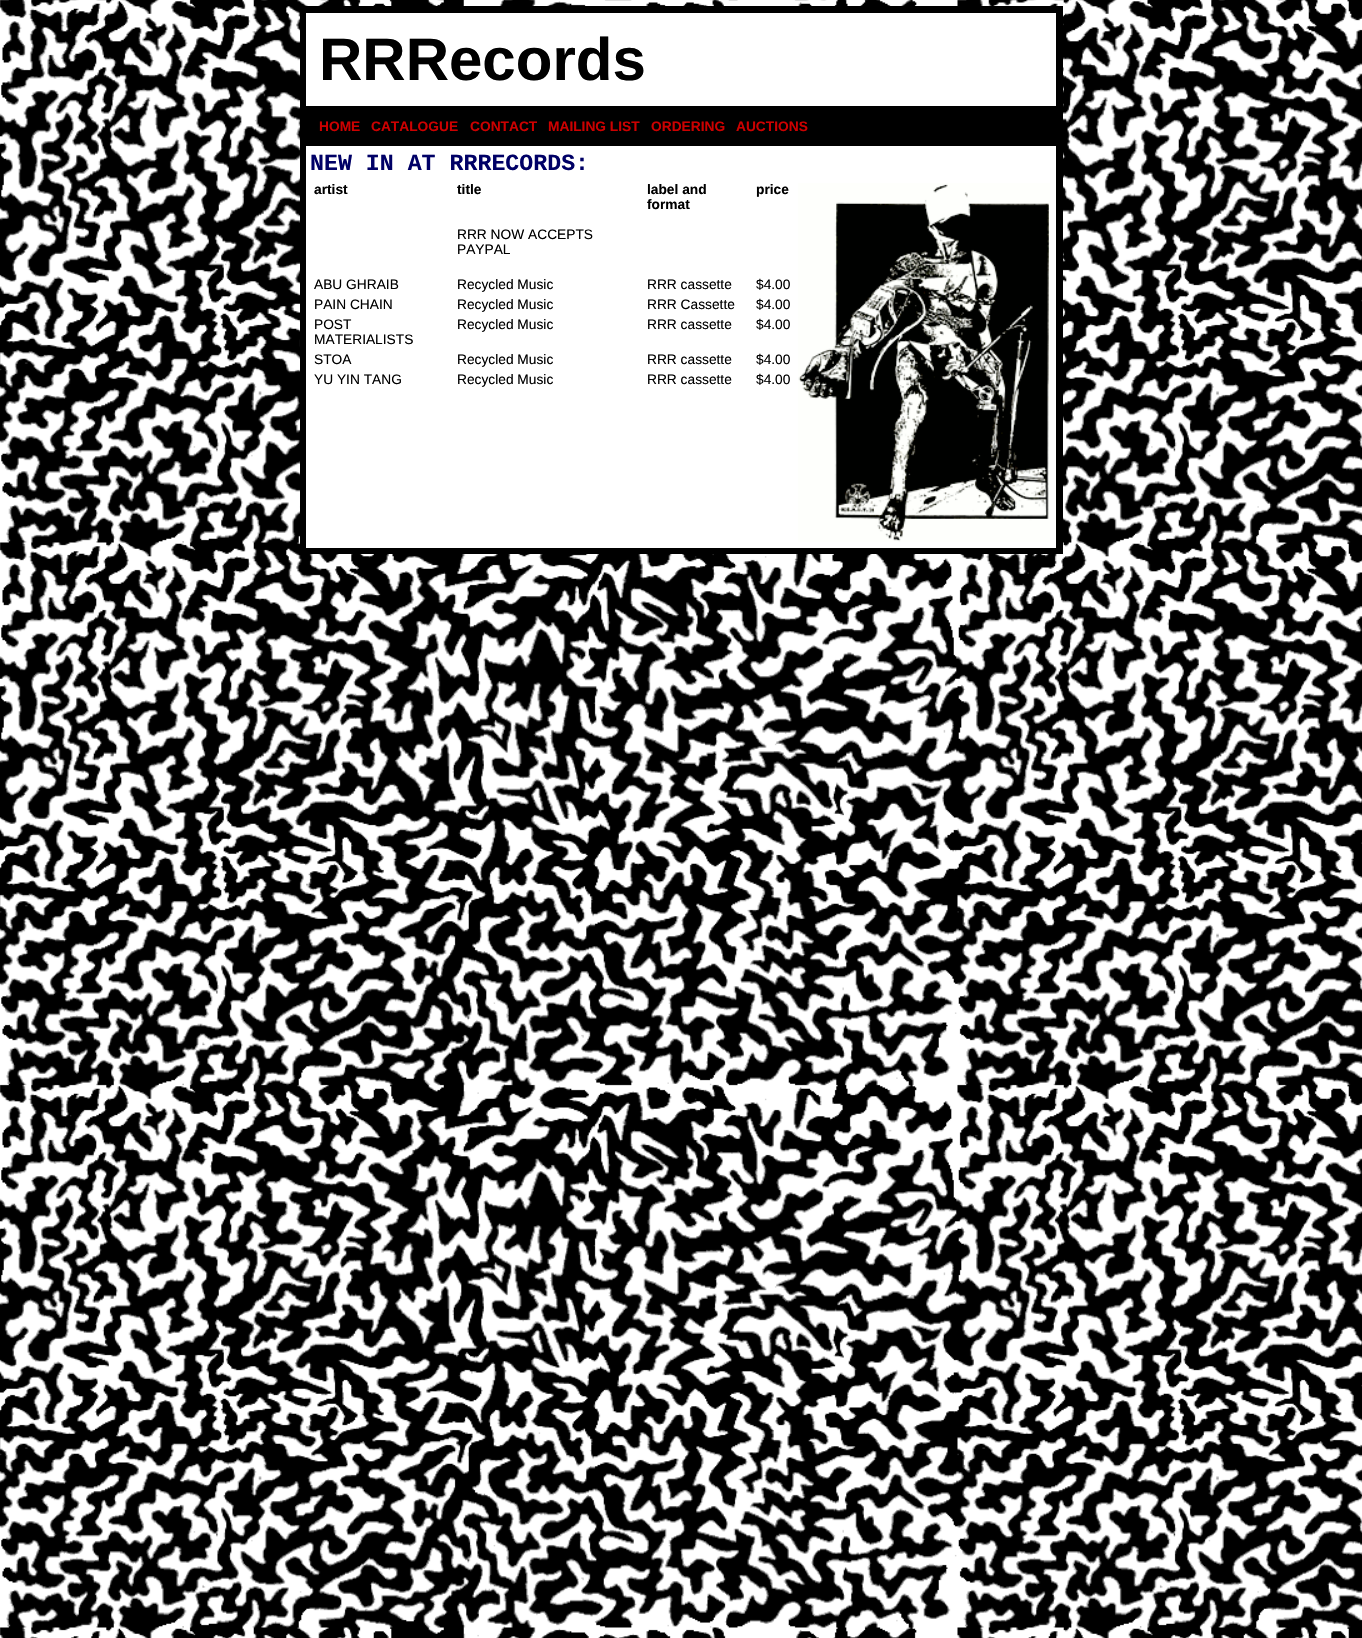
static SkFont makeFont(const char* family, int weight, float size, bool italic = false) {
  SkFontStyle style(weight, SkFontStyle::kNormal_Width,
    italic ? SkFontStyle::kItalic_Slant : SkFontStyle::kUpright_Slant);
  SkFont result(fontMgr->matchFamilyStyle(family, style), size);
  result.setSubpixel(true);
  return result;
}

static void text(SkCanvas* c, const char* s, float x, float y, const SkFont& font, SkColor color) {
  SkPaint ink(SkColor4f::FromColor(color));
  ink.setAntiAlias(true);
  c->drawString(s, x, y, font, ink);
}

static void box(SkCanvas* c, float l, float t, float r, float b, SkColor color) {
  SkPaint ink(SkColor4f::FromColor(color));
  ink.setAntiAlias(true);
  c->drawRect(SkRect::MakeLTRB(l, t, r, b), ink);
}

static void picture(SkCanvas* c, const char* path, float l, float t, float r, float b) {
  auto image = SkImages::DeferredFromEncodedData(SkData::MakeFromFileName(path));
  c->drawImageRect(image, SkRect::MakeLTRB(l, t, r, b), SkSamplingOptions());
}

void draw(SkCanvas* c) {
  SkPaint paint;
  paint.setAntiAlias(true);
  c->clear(0xffffffff);
  picture(c, "img_01.png", 0, 0, 1362, 1638);
  box(c, 300, 6, 1063, 554, 0xff000000);
  box(c, 306, 13, 1056, 106, 0xffffffff);
  SkFont face1 = makeFont("Liberation Sans", 700, 60);
  text(c, "RRRecords", 319, 80, face1, 0xff000000);
  SkFont face2 = makeFont("Liberation Sans", 700, 13.75f);
  text(c, "HOME", 319, 131, face2, 0xffcc0000);
  text(c, "CATALOGUE", 371, 131, face2, 0xffcc0000);
  text(c, "CONTACT", 470, 131, face2, 0xffcc0000);
  text(c, "MAILING LIST", 548, 131, face2, 0xffcc0000);
  text(c, "ORDERING", 651, 131, face2, 0xffcc0000);
  text(c, "AUCTIONS", 736, 131, face2, 0xffcc0000);
  box(c, 306, 146, 1056, 548, 0xffffffff);
  SkFont face3 = makeFont("Liberation Mono", 700, 23.25f);
  text(c, "NEW IN AT RRRECORDS:", 310, 170, face3, 0xff000066);
  text(c, "artist", 314, 194, face2, 0xff000000);
  text(c, "title", 457, 194, face2, 0xff000000);
  text(c, "label and", 647, 194, face2, 0xff000000);
  text(c, "format", 647, 209, face2, 0xff000000);
  text(c, "price", 756, 194, face2, 0xff000000);
  SkFont face4 = makeFont("Liberation Sans", 400, 13.75f);
  text(c, "RRR NOW ACCEPTS", 457, 239, face4, 0xff000000);
  text(c, "PAYPAL", 457, 254, face4, 0xff000000);
  text(c, "ABU GHRAIB", 314, 289, face4, 0xff000000);
  text(c, "Recycled Music", 457, 289, face4, 0xff000000);
  text(c, "RRR cassette", 647, 289, face4, 0xff000000);
  text(c, "$4.00", 756, 289, face4, 0xff000000);
  text(c, "PAIN CHAIN", 314, 309, face4, 0xff000000);
  text(c, "Recycled Music", 457, 309, face4, 0xff000000);
  text(c, "RRR Cassette", 647, 309, face4, 0xff000000);
  text(c, "$4.00", 756, 309, face4, 0xff000000);
  text(c, "POST", 314, 329, face4, 0xff000000);
  text(c, "MATERIALISTS", 314, 344, face4, 0xff000000);
  text(c, "Recycled Music", 457, 329, face4, 0xff000000);
  text(c, "RRR cassette", 647, 329, face4, 0xff000000);
  text(c, "$4.00", 756, 329, face4, 0xff000000);
  text(c, "STOA", 314, 364, face4, 0xff000000);
  text(c, "Recycled Music", 457, 364, face4, 0xff000000);
  text(c, "RRR cassette", 647, 364, face4, 0xff000000);
  text(c, "$4.00", 756, 364, face4, 0xff000000);
  text(c, "YU YIN TANG", 314, 384, face4, 0xff000000);
  text(c, "Recycled Music", 457, 384, face4, 0xff000000);
  text(c, "RRR cassette", 647, 384, face4, 0xff000000);
  text(c, "$4.00", 756, 384, face4, 0xff000000);
  picture(c, "img_02.png", 798, 183, 1050, 542);
}
